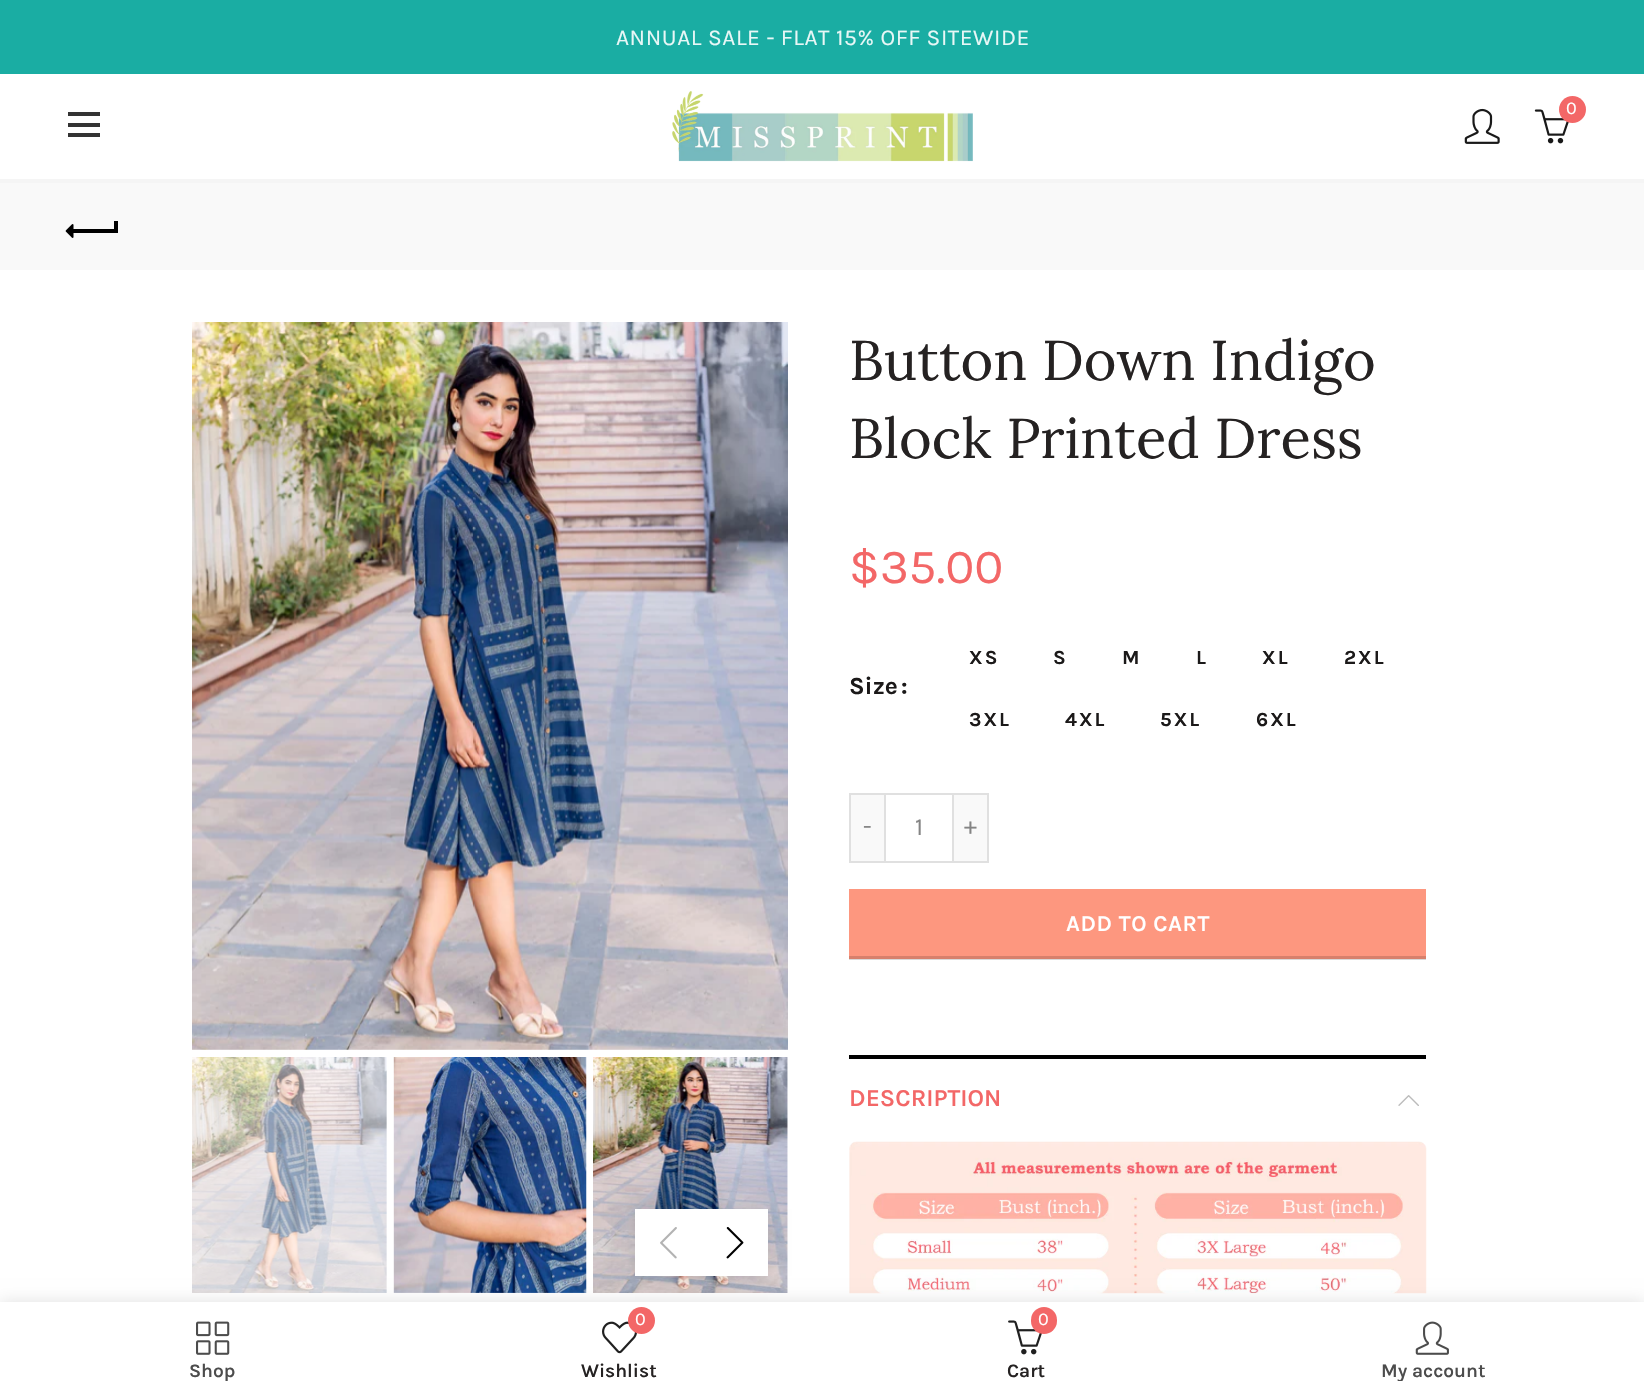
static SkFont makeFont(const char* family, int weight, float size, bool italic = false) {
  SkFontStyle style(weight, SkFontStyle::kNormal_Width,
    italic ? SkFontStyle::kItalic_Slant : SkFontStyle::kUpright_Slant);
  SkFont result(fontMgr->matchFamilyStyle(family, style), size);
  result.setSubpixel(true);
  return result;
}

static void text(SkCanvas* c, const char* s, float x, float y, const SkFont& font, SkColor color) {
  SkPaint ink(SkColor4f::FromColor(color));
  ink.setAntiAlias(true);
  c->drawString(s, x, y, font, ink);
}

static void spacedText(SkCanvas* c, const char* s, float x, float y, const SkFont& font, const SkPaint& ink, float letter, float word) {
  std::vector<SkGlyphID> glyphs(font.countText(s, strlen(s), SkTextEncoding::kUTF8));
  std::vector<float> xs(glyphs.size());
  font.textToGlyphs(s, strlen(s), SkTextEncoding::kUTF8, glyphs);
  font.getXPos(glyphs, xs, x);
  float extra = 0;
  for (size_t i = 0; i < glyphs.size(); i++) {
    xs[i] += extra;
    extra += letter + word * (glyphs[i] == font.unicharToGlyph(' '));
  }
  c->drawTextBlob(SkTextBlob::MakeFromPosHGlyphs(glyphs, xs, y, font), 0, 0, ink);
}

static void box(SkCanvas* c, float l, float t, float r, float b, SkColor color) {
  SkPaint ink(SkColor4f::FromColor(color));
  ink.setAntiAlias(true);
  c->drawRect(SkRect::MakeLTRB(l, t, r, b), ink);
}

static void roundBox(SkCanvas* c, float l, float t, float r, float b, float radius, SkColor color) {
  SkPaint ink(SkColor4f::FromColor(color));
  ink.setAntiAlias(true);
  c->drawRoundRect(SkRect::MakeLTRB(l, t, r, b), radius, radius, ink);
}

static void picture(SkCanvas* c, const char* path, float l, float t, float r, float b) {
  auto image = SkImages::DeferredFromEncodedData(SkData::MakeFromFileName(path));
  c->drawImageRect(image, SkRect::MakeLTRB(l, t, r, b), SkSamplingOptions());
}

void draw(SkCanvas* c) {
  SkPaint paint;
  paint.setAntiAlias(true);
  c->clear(0xffffffff);
  box(c, 849, 959, 1426, 960, 0xffd9d9d9);
  box(c, 0, 0, 1644, 74, 0xff1aada3);
  SkFont face1 = makeFont("Karla", 400, 22.75f);
  paint.setColor(0xffe8f7f6);
  spacedText(c, "ANNUAL SALE - FLAT 15% OFF SITEWIDE", 616, 45, face1, paint, 0.55f, 0);
  box(c, 0, 179, 1644, 183, 0xfff5f5f5);
  picture(c, "img_01.png", 672, 91, 973, 162);
  picture(c, "img_02.png", 1464, 108, 1500, 144);
  picture(c, "img_03.png", 1534, 109, 1569, 144);
  paint.setColor(0xfff36767);
  c->drawCircle(1572.5f, 109.5f, 13.5f, paint);
  SkFont face2 = makeFont("Karla", 400, 18);
  text(c, "0", 1566, 114, face2, 0xffffffff);
  box(c, 68, 123, 100, 127, 0xff333333);
  box(c, 68, 112, 100, 116, 0xff333333);
  box(c, 68, 133, 100, 137, 0xff333333);
  box(c, 0, 183, 1644, 270, 0xfff9f9f9);
  box(c, 72, 229, 116, 233, 0xff000000);
  picture(c, "img_04.png", 65, 224, 74, 238);
  box(c, 114, 221, 118, 233, 0xff000000);
  picture(c, "img_05.png", 192, 322, 788, 1050);
  picture(c, "img_06.png", 192, 1057, 387, 1293);
  picture(c, "img_07.png", 393, 1057, 587, 1293);
  picture(c, "img_08.png", 593, 1057, 788, 1293);
  paint.setColor(0x1a000000);
  paint.setMaskFilter(SkMaskFilter::MakeBlur(kNormal_SkBlurStyle, 8));
  c->drawRect(SkRect::MakeLTRB(635, 1209, 768, 1276), paint);
  paint.setMaskFilter(nullptr);
  box(c, 635, 1209, 768, 1276, 0xffffffff);
  picture(c, "img_09.png", 660, 1227, 677, 1259);
  picture(c, "img_10.png", 726, 1227, 744, 1259);
  SkFont face3 = makeFont("Lora", 400, 56);
  text(c, "Button Down Indigo", 849, 380, face3, 0xff252222);
  text(c, "Block Printed Dress", 849, 458, face3, 0xff252222);
  SkFont face4 = makeFont("Karla", 400, 49);
  text(c, "$35.00", 849, 583, face4, 0xfff36767);
  SkFont face5 = makeFont("Karla", 700, 24.5f);
  text(c, "Size", 849, 694, face5, 0xff1b1919);
  text(c, ":", 901, 694, face5, 0xff1b1919);
  SkFont face6 = makeFont("Karla", 700, 20);
  paint.setColor(0xff1b1919);
  spacedText(c, "XS", 969, 664, face6, paint, 2, 0);
  spacedText(c, "S", 1053, 664, face6, paint, 2, 0);
  spacedText(c, "M", 1122, 664, face6, paint, 2, 0);
  spacedText(c, "L", 1196, 664, face6, paint, 2, 0);
  spacedText(c, "XL", 1262, 664, face6, paint, 2, 0);
  spacedText(c, "2XL", 1344, 664, face6, paint, 2, 0);
  spacedText(c, "3XL", 969, 726, face6, paint, 2, 0);
  spacedText(c, "4XL", 1065, 726, face6, paint, 2, 0);
  spacedText(c, "5XL", 1160, 726, face6, paint, 2, 0);
  spacedText(c, "6XL", 1256, 726, face6, paint, 2, 0);
  box(c, 851, 795, 884, 861, 0xfff9f9f9);
  box(c, 849, 793, 884, 795, 0xffe0e0e0);
  box(c, 849, 861, 884, 863, 0xffe0e0e0);
  box(c, 849, 793, 851, 863, 0xffe0e0e0);
  SkFont face7 = makeFont("Karla", 400, 24.5f);
  text(c, "-", 863, 834, face7, 0xff848484);
  paint.setStyle(SkPaint::kStroke_Style);
  paint.setStrokeWidth(2);
  paint.setColor(0xffe0e0e0);
  c->drawRect(SkRect::MakeLTRB(885, 794, 953, 862), paint);
  text(c, "1", 915, 835, face7, 0xff848484);
  box(c, 954, 795, 987, 861, 0xfff9f9f9);
  box(c, 954, 793, 989, 795, 0xffe0e0e0);
  box(c, 987, 793, 989, 863, 0xffe0e0e0);
  box(c, 954, 861, 989, 863, 0xffe0e0e0);
  text(c, "+", 964, 834, face7, 0xff848484);
  box(c, 849, 889, 1426, 956, 0xfffd977f);
  box(c, 849, 956, 1426, 959, 0xffd7806c);
  SkFont face8 = makeFont("Karla", 600, 22.75f);
  paint.setStyle(SkPaint::kFill_Style);
  paint.setColor(0xffffffff);
  spacedText(c, "ADD TO CART", 1066, 931, face8, paint, 0.55f, 0);
  box(c, 849, 1055, 1426, 1059, 0xff000000);
  SkFont face9 = makeFont("Karla", 600, 24.5f);
  text(c, "DESCRIPTION", 849, 1106, face9, 0xfff36767);
  picture(c, "img_11.png", 1398, 1095, 1419, 1106);
  picture(c, "img_12.png", 849, 1141, 1427, 1294);
  paint.setColor(0x1f000000);
  paint.setMaskFilter(SkMaskFilter::MakeBlur(kNormal_SkBlurStyle, 8));
  c->drawRect(SkRect::MakeLTRB(0, 1302, 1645, 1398), paint);
  paint.setMaskFilter(nullptr);
  box(c, 0, 1302, 1644, 1397, 0xffffffff);
  picture(c, "img_13.png", 196, 1321, 230, 1355);
  c->save();
  c->clipRect(SkRect::MakeLTRB(26, 1362, 399, 1381));
  SkFont face10 = makeFont("Karla", 600, 19.25f);
  text(c, "Shop", 189, 1377, face10, 0xff4c4c4c);
  c->restore();
  picture(c, "img_14.png", 602, 1321, 637, 1354);
  paint.setColor(0xfff36767);
  c->drawCircle(641.5f, 1320.5f, 13.5f, paint);
  text(c, "0", 635, 1325, face2, 0xffffffff);
  text(c, "Wishlist", 581, 1377, face10, 0xff252222);
  picture(c, "img_15.png", 1008, 1320, 1042, 1355);
  roundBox(c, 1031, 1307, 1057, 1334, 13, 0xfff36767);
  text(c, "0", 1038, 1325, face2, 0xffffffff);
  text(c, "Cart", 1007, 1377, face10, 0xff252222);
  picture(c, "img_16.png", 1415, 1321, 1449, 1355);
  c->save();
  c->clipRect(SkRect::MakeLTRB(1248, 1362, 1619, 1381));
  text(c, "My account", 1381, 1377, face10, 0xff4c4c4c);
  c->restore();
}
